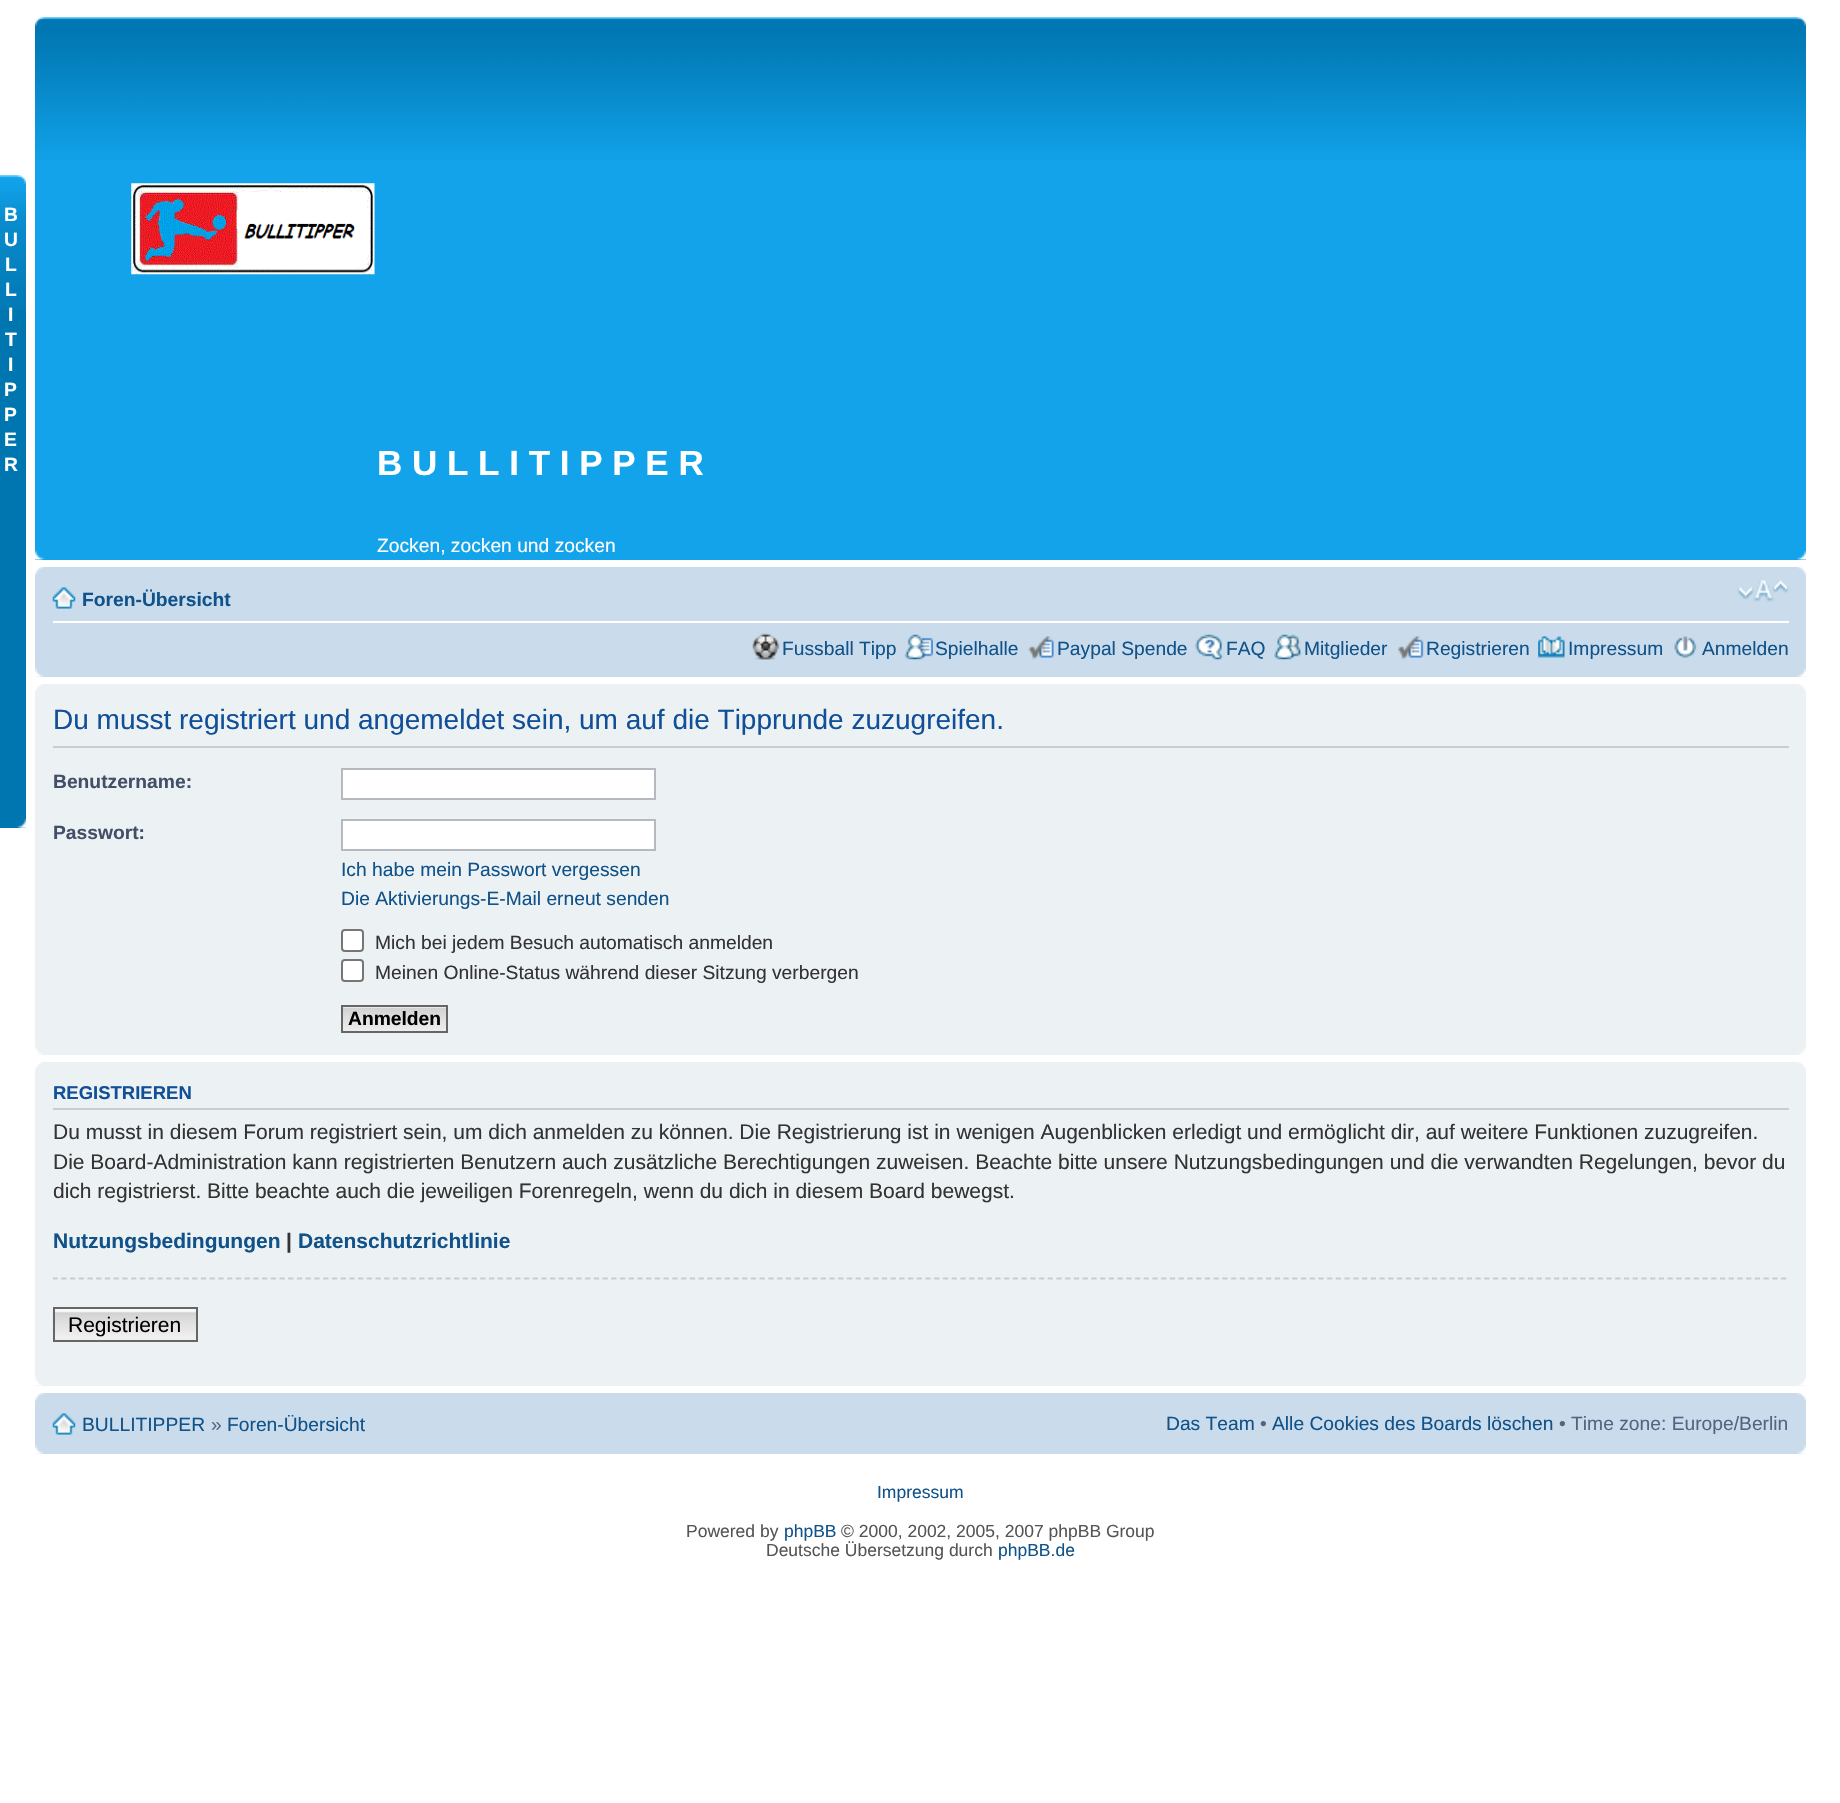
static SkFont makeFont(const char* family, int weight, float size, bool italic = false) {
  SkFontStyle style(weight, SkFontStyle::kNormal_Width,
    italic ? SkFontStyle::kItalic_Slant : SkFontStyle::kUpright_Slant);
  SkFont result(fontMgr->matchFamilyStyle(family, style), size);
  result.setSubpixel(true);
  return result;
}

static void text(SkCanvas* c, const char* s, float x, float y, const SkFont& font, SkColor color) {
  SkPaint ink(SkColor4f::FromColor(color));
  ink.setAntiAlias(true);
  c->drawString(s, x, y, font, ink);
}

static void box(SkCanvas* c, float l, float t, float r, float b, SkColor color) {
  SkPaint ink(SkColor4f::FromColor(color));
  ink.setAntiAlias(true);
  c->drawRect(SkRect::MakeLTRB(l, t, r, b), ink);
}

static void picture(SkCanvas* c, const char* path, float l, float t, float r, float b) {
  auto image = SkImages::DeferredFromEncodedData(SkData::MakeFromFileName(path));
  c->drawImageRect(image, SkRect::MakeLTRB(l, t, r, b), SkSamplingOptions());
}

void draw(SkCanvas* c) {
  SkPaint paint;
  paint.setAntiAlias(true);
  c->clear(0xffffffff);
  box(c, 0, 310, 26, 828, 0xff0076b1);
  picture(c, "img_01.png", 0, 175, 26, 310);
  picture(c, "img_02.png", 16, 175, 26, 184);
  SkFont face1 = makeFont("Liberation Sans", 700, 19.25f);
  text(c, "B", 4, 221, face1, 0xffffffff);
  text(c, "U", 4, 246, face1, 0xffffffff);
  text(c, "L", 5, 271, face1, 0xffffffff);
  text(c, "L", 5, 296, face1, 0xffffffff);
  text(c, "I", 8, 321, face1, 0xffffffff);
  text(c, "T", 5, 346, face1, 0xffffffff);
  text(c, "I", 8, 371, face1, 0xffffffff);
  text(c, "P", 4, 396, face1, 0xffffffff);
  text(c, "P", 4, 421, face1, 0xffffffff);
  text(c, "E", 4, 446, face1, 0xffffffff);
  text(c, "R", 4, 471, face1, 0xffffffff);
  picture(c, "img_03.png", 17, 819, 26, 828);
  box(c, 35, 160, 1806, 560, 0xff12a3eb);
  picture(c, "img_04.png", 35, 17, 1806, 160);
  picture(c, "img_05.png", 35, 17, 45, 26);
  picture(c, "img_06.png", 1796, 17, 1806, 26);
  picture(c, "img_07.png", 131, 183, 375, 275);
  SkFont face2 = makeFont("Liberation Sans", 700, 35);
  text(c, "B U L L I T I P P E R", 377, 475, face2, 0xffffffff);
  SkFont face3 = makeFont("Liberation Sans", 400, 19.25f);
  text(c, "Zocken, zocken und zocken", 377, 552, face3, 0xffffffff);
  picture(c, "img_08.png", 35, 550, 45, 560);
  picture(c, "img_09.png", 1797, 550, 1806, 560);
  box(c, 35, 567, 1806, 677, 0xffcadceb);
  picture(c, "img_10.png", 35, 567, 44, 575);
  picture(c, "img_11.png", 1797, 567, 1806, 575);
  box(c, 53, 621, 1789, 623, 0xffffffff);
  picture(c, "img_12.png", 52, 587, 76, 609);
  text(c, "Foren-Übersicht", 82, 606, face1, 0xff105289);
  picture(c, "img_13.png", 1737, 580, 1789, 602);
  picture(c, "img_14.png", 752, 633, 780, 660);
  text(c, "Fussball Tipp", 782, 655, face3, 0xff105289);
  picture(c, "img_15.png", 904, 634, 933, 660);
  text(c, "Spielhalle", 935, 655, face3, 0xff105289);
  picture(c, "img_16.png", 1028, 636, 1054, 660);
  text(c, "Paypal Spende", 1057, 655, face3, 0xff105289);
  picture(c, "img_17.png", 1195, 634, 1224, 660);
  text(c, "FAQ", 1226, 655, face3, 0xff105289);
  picture(c, "img_18.png", 1274, 634, 1302, 660);
  text(c, "Mitglieder", 1304, 655, face3, 0xff105289);
  picture(c, "img_19.png", 1397, 636, 1424, 660);
  text(c, "Registrieren", 1426, 655, face3, 0xff105289);
  picture(c, "img_20.png", 1538, 636, 1565, 658);
  text(c, "Impressum", 1568, 655, face3, 0xff105289);
  picture(c, "img_21.png", 1674, 636, 1697, 658);
  text(c, "Anmelden", 1702, 655, face3, 0xff105289);
  picture(c, "img_22.png", 35, 668, 44, 677);
  picture(c, "img_23.png", 1797, 668, 1806, 677);
  box(c, 35, 684, 1806, 1055, 0xffecf1f3);
  picture(c, "img_24.png", 35, 684, 43, 692);
  picture(c, "img_25.png", 1798, 684, 1806, 692);
  box(c, 53, 746, 1789, 748, 0xffcccccc);
  SkFont face4 = makeFont("Liberation Sans", 400, 28);
  text(c, "Du musst registriert und angemeldet sein, um auf die Tipprunde zuzugreifen.", 53, 729, face4, 0xff115098);
  text(c, "Benutzername:", 53, 788, face1, 0xff425067);
  paint.setColor(0xffffffff);
  c->drawRect(SkRect::MakeLTRB(342, 769, 655, 799), paint);
  paint.setStyle(SkPaint::kStroke_Style);
  paint.setStrokeWidth(2);
  paint.setColor(0xffb4bac0);
  c->drawRect(SkRect::MakeLTRB(342, 769, 655, 799), paint);
  text(c, "Passwort:", 53, 839, face1, 0xff425067);
  paint.setStyle(SkPaint::kFill_Style);
  paint.setColor(0xffffffff);
  c->drawRect(SkRect::MakeLTRB(342, 820, 655, 850), paint);
  paint.setStyle(SkPaint::kStroke_Style);
  paint.setColor(0xffb4bac0);
  c->drawRect(SkRect::MakeLTRB(342, 820, 655, 850), paint);
  text(c, "Ich habe mein Passwort vergessen", 341, 876, face3, 0xff105289);
  text(c, "Die Aktivierungs-E-Mail erneut senden", 341, 905, face3, 0xff105289);
  paint.setStyle(SkPaint::kFill_Style);
  paint.setColor(0xffffffff);
  c->drawRoundRect(SkRect::MakeLTRB(342, 930, 363, 951), 3, 3, paint);
  paint.setStyle(SkPaint::kStroke_Style);
  paint.setColor(0xff767676);
  c->drawRoundRect(SkRect::MakeLTRB(342, 930, 363, 951), 3, 3, paint);
  text(c, "Mich bei jedem Besuch automatisch anmelden", 375, 949, face3, 0xff333333);
  paint.setStyle(SkPaint::kFill_Style);
  paint.setColor(0xffffffff);
  c->drawRoundRect(SkRect::MakeLTRB(342, 960, 363, 981), 3, 3, paint);
  paint.setStyle(SkPaint::kStroke_Style);
  paint.setColor(0xff767676);
  c->drawRoundRect(SkRect::MakeLTRB(342, 960, 363, 981), 3, 3, paint);
  text(c, "Meinen Online-Status während dieser Sitzung verbergen", 375, 979, face3, 0xff333333);
  picture(c, "img_26.png", 343, 1007, 446, 1031);
  paint.setColor(0xff666666);
  c->drawRect(SkRect::MakeLTRB(342, 1006, 447, 1032), paint);
  text(c, "Anmelden", 348, 1025, face1, 0xff000000);
  picture(c, "img_27.png", 35, 1046, 43, 1055);
  picture(c, "img_28.png", 1798, 1046, 1806, 1055);
  box(c, 35, 1062, 1806, 1386, 0xffecf1f3);
  picture(c, "img_24.png", 35, 1062, 43, 1070);
  picture(c, "img_25.png", 1798, 1062, 1806, 1070);
  box(c, 53, 1108, 1789, 1110, 0xffcccccc);
  SkFont face5 = makeFont("Liberation Sans", 700, 18.5f);
  text(c, "REGISTRIEREN", 53, 1099, face5, 0xff115098);
  SkFont face6 = makeFont("Liberation Sans", 400, 21);
  text(c, "Du musst in diesem Forum registriert sein, um dich anmelden zu können. Die Registrierung ist in wenigen Augenblicken erledigt und ermöglicht dir, auf weitere Funktionen zuzugreifen.", 53, 1139, face6, 0xff333333);
  text(c, "Die Board-Administration kann registrierten Benutzern auch zusätzliche Berechtigungen zuweisen. Beachte bitte unsere Nutzungsbedingungen und die verwandten Regelungen, bevor du", 53, 1169, face6, 0xff333333);
  text(c, "dich registrierst. Bitte beachte auch die jeweiligen Forenregeln, wenn du dich in diesem Board bewegst.", 53, 1198, face6, 0xff333333);
  SkFont face7 = makeFont("Liberation Sans", 700, 21);
  text(c, "Nutzungsbedingungen", 53, 1248, face7, 0xff105289);
  text(c, "|", 286, 1248, face7, 0xff333333);
  text(c, "Datenschutzrichtlinie", 298, 1248, face7, 0xff105289);
  c->save();
  c->clipRect(SkRect::MakeLTRB(53, 1071, 1789, 1377));
  paint.setStrokeWidth(1.8f);
  paint.setColor(0xffcccccc);
  paint.setPathEffect(SkDashPathEffect::Make({{5.25f, 3.48f}}, 0));
  c->drawPath(SkPathBuilder().moveTo(52.5f, 1278.5f).lineTo(1788.5f, 1278.5f).detach(), paint);
  paint.setPathEffect(nullptr);
  c->restore();
  picture(c, "img_29.png", 52, 1311, 196, 1342);
  box(c, 55, 1309, 196, 1311, 0xfffafafa);
  paint.setStrokeWidth(2);
  paint.setColor(0xff666666);
  c->drawRect(SkRect::MakeLTRB(54, 1308, 197, 1341), paint);
  text(c, "Registrieren", 68, 1332, face6, 0xff000000);
  picture(c, "img_30.png", 35, 1377, 43, 1386);
  picture(c, "img_31.png", 1798, 1377, 1806, 1386);
  box(c, 35, 1393, 1806, 1454, 0xffcadceb);
  picture(c, "img_10.png", 35, 1393, 44, 1401);
  picture(c, "img_11.png", 1797, 1393, 1806, 1401);
  picture(c, "img_12.png", 52, 1413, 76, 1435);
  text(c, "BULLITIPPER", 82, 1431, face3, 0xff105289);
  text(c, "»", 211, 1431, face3, 0xff536482);
  text(c, "Foren-Übersicht", 227, 1431, face3, 0xff105289);
  text(c, "Das Team", 1166, 1430, face3, 0xff105289);
  text(c, "•", 1260, 1430, face3, 0xff536482);
  text(c, "Alle Cookies des Boards löschen", 1272, 1430, face3, 0xff105289);
  text(c, "• Time zone: Europe/Berlin", 1559, 1430, face3, 0xff536482);
  picture(c, "img_22.png", 35, 1445, 44, 1454);
  picture(c, "img_23.png", 1797, 1445, 1806, 1454);
  SkFont face8 = makeFont("Liberation Sans", 400, 17.5f);
  text(c, "Impressum", 877, 1498, face8, 0xff105289);
  text(c, "Powered by", 686, 1537, face8, 0xff555555);
  text(c, "phpBB", 784, 1537, face8, 0xff105289);
  text(c, "© 2000, 2002, 2005, 2007 phpBB Group", 841, 1537, face8, 0xff555555);
  text(c, "Deutsche Übersetzung durch", 766, 1556, face8, 0xff555555);
  text(c, "phpBB.de", 998, 1556, face8, 0xff105289);
}
